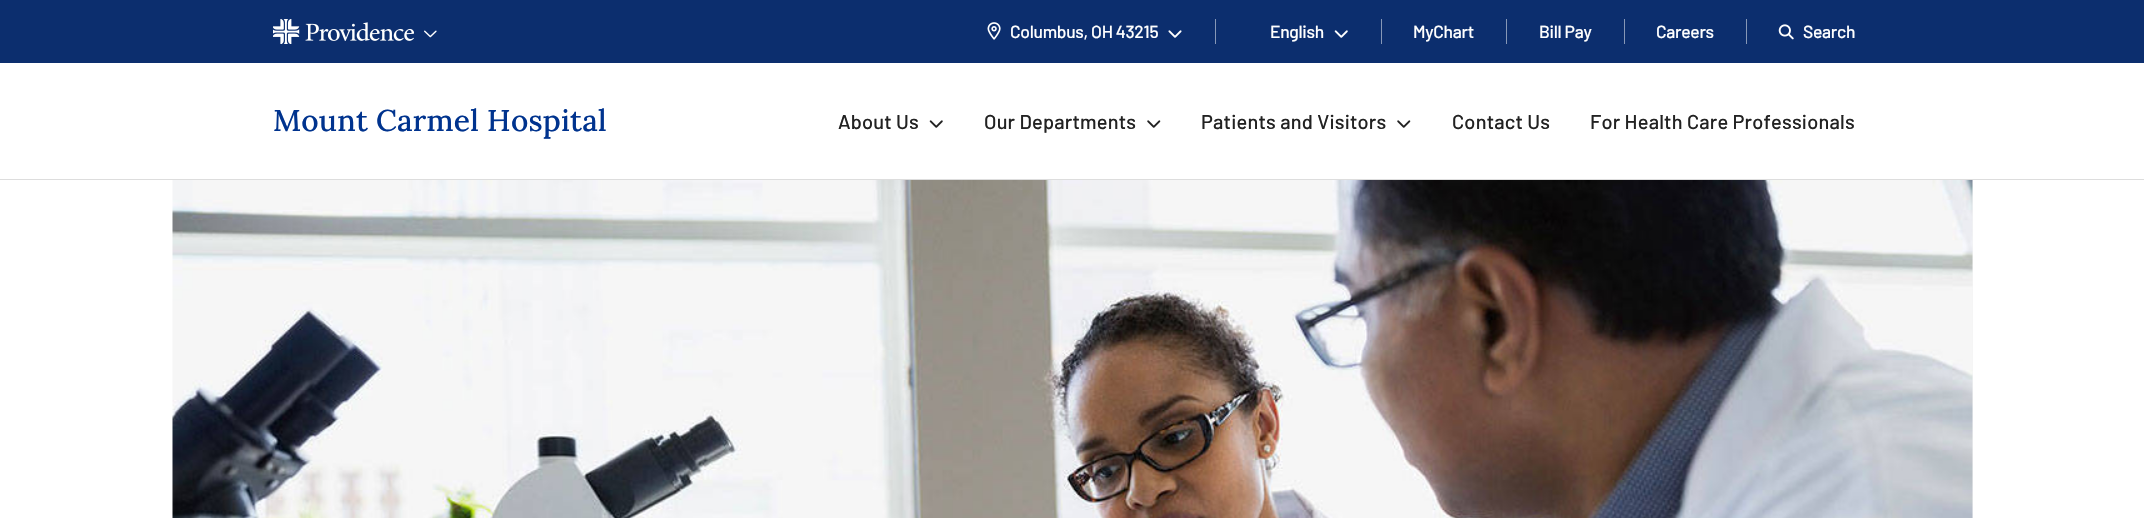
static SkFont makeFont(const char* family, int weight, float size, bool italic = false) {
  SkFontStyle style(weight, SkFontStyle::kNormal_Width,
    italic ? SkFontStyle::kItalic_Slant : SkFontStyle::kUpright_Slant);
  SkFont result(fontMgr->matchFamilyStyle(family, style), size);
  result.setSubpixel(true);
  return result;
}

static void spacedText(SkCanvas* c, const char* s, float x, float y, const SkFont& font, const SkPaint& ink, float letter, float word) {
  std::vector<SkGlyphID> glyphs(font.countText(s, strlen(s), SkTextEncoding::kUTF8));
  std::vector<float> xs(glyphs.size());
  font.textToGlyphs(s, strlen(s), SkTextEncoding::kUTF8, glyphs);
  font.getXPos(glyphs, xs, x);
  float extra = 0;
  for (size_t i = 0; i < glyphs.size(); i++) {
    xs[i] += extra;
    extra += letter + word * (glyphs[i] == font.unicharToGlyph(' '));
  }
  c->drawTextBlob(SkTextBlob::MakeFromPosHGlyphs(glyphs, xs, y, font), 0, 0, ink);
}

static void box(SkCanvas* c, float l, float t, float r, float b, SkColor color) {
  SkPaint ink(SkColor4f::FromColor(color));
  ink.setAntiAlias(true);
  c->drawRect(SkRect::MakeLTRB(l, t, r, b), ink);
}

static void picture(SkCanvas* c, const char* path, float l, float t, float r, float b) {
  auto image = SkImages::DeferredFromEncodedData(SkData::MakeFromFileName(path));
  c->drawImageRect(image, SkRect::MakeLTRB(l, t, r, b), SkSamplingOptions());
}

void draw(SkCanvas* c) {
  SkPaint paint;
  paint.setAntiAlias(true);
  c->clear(0xffffffff);
  box(c, 0, 0, 2144, 63, 0xff0c2e6e);
  picture(c, "img_01.png", 273, 19, 414, 44);
  picture(c, "img_02.png", 424, 30, 437, 38);
  picture(c, "img_03.png", 987, 22, 1001, 40);
  SkFont face1 = makeFont("Barlow", 500, 17.5f);
  paint.setColor(0xffffffff);
  spacedText(c, "Columbus, OH 43215", 1010, 38, face1, paint, -0.3f, 0);
  picture(c, "img_04.png", 1168, 30, 1182, 38);
  box(c, 1215, 19, 1216, 44, 0xff8697b7);
  spacedText(c, "English", 1270, 38, face1, paint, -0.3f, 0);
  picture(c, "img_05.png", 1334, 30, 1348, 38);
  box(c, 1381, 19, 1382, 44, 0xff8697b7);
  spacedText(c, "MyChart", 1413, 38, face1, paint, -0.3f, 0);
  box(c, 1506, 19, 1507, 44, 0xff8697b7);
  spacedText(c, "Bill Pay", 1539, 38, face1, paint, -0.3f, 0);
  box(c, 1624, 19, 1625, 44, 0xff8697b7);
  spacedText(c, "Careers", 1656, 38, face1, paint, -0.3f, 0);
  box(c, 1746, 19, 1747, 44, 0xff8697b7);
  picture(c, "img_06.png", 1778, 24, 1794, 40);
  spacedText(c, "Search", 1803, 38, face1, paint, -0.3f, 0);
  box(c, 0, 179, 2144, 180, 0xffdddddd);
  SkFont face2 = makeFont("Lora", 500, 30);
  paint.setColor(0xff00338e);
  spacedText(c, "Mount Carmel Hospital", 273, 131, face2, paint, 0.2f, 0);
  SkFont face3 = makeFont("Barlow", 500, 20);
  paint.setColor(0xff222222);
  spacedText(c, "About Us", 838, 129, face3, paint, 0.2f, 0);
  picture(c, "img_07.png", 929, 120, 943, 128);
  spacedText(c, "Our Departments", 984, 129, face3, paint, 0.2f, 0);
  picture(c, "img_08.png", 1147, 120, 1161, 128);
  spacedText(c, "Patients and Visitors", 1201, 129, face3, paint, 0.2f, 0);
  picture(c, "img_08.png", 1397, 120, 1411, 128);
  spacedText(c, "Contact Us", 1452, 129, face3, paint, 0.2f, 0);
  spacedText(c, "For Health Care Professionals", 1590, 129, face3, paint, 0.2f, 0);
  box(c, 1972, 180, 1973, 518, 0xfff5f5f5);
  picture(c, "img_09.png", 172, 180, 1973, 518);
}
